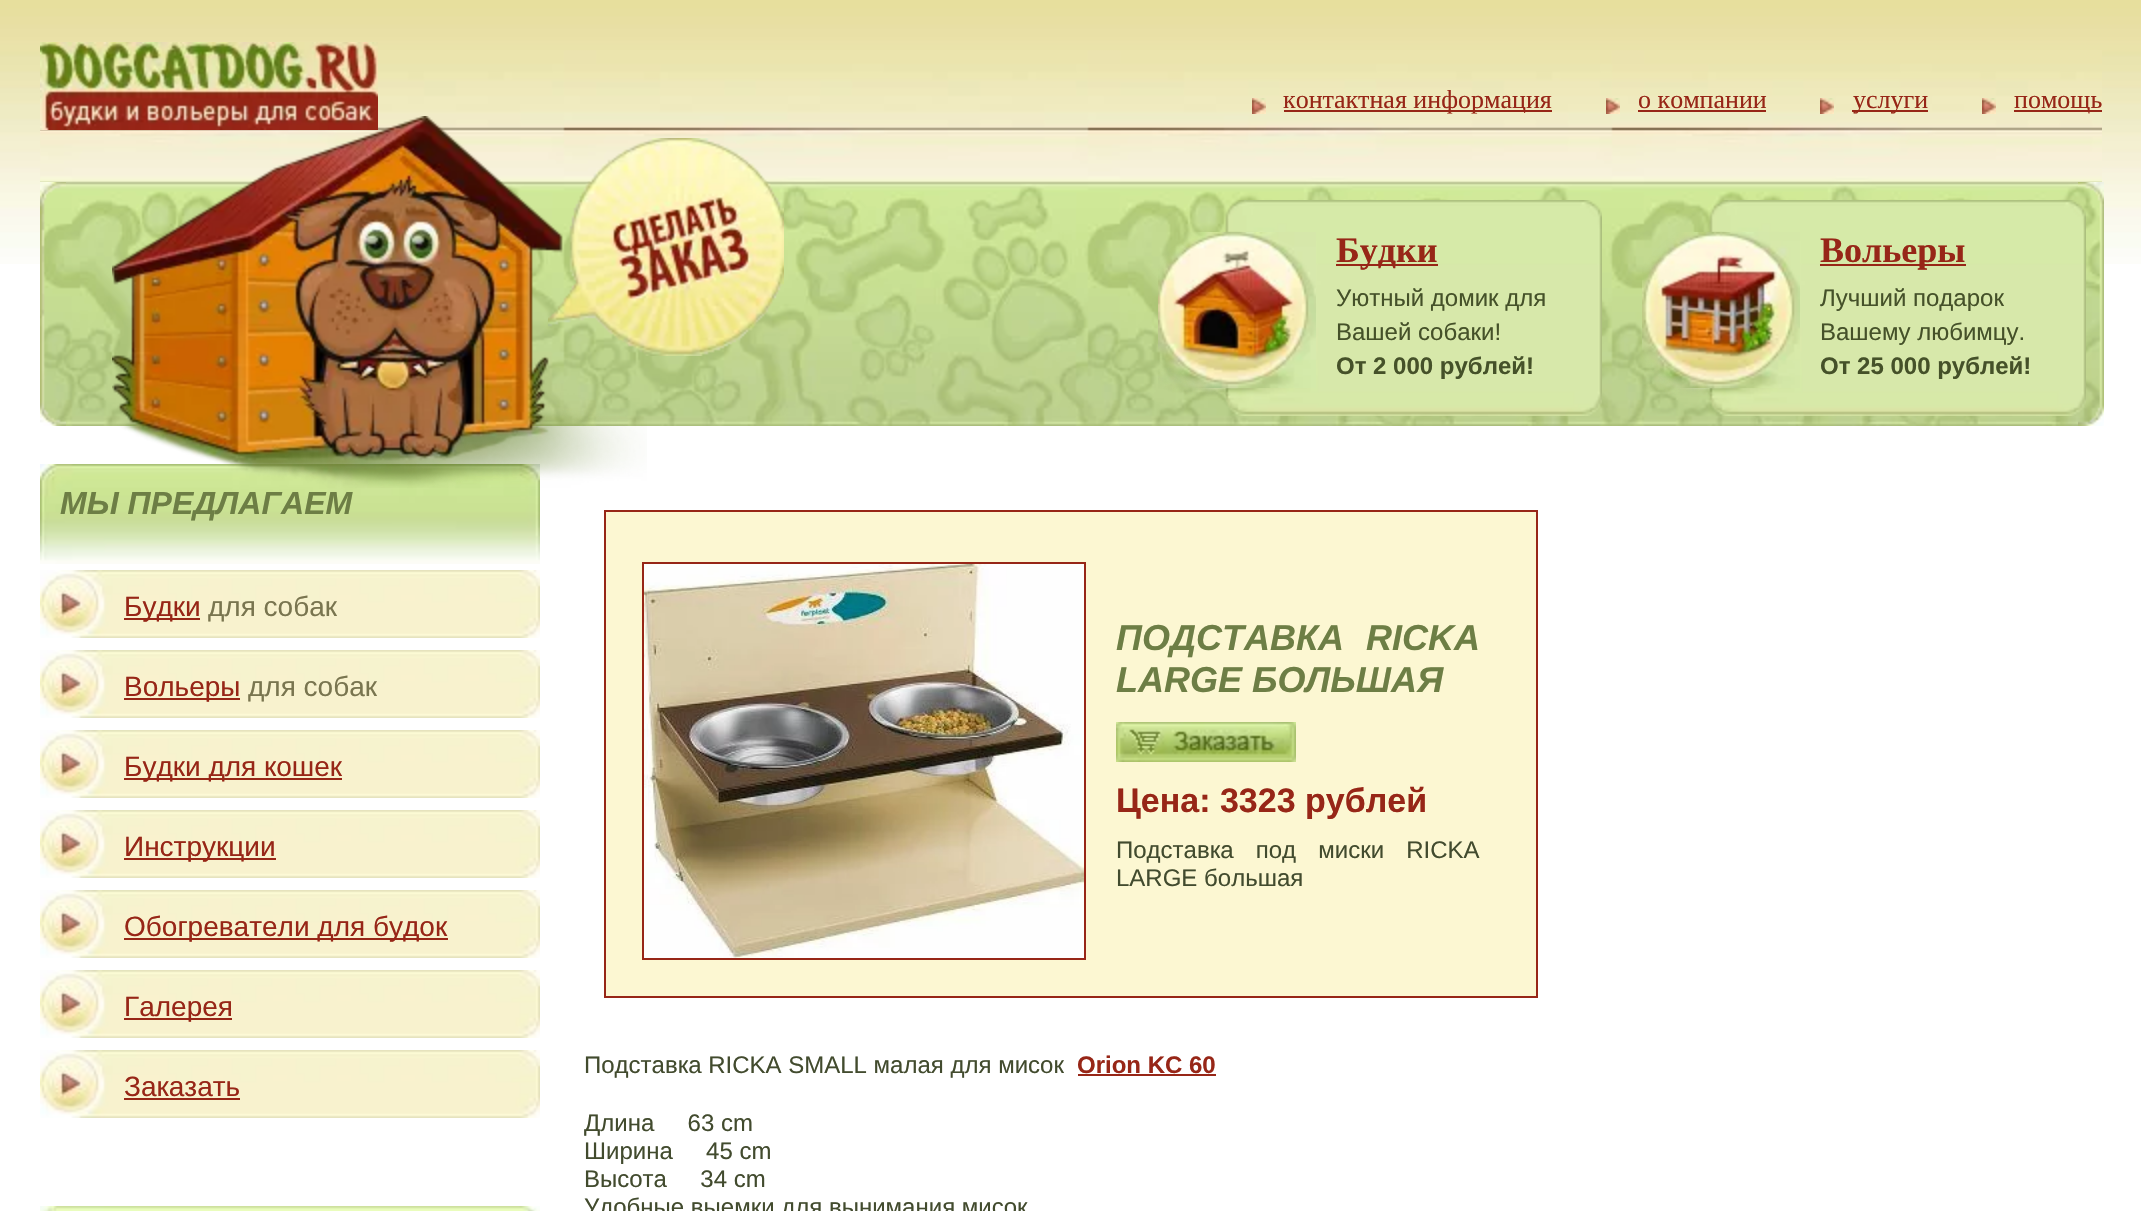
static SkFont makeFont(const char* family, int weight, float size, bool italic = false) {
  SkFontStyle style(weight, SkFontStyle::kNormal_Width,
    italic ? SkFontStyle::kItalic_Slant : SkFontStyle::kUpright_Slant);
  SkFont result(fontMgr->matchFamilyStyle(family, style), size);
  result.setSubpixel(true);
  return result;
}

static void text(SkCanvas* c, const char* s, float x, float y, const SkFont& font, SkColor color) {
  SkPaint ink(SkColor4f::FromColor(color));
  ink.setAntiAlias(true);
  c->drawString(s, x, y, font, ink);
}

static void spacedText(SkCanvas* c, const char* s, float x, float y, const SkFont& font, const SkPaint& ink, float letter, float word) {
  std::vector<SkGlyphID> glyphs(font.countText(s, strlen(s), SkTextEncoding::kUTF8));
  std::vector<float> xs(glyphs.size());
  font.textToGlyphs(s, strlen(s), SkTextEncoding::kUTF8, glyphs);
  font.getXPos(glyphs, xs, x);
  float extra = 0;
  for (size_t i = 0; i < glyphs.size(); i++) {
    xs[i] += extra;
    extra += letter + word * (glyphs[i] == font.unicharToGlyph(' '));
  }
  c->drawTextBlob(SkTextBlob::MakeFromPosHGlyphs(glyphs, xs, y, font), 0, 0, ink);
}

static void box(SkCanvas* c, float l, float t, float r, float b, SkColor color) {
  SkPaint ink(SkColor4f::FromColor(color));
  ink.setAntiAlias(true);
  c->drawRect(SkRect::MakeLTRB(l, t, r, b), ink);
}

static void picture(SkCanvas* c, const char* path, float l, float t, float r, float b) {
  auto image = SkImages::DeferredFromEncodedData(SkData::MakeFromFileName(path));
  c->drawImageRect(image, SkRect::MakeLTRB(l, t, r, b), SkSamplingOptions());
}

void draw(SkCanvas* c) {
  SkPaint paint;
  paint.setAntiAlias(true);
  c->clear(0xffffffff);
  picture(c, "img_01.png", 0, 0, 2141, 264);
  picture(c, "img_02.png", 40, 50, 2102, 426);
  picture(c, "img_03.png", 40, 42, 378, 130);
  picture(c, "img_04.png", 1252, 98, 1266, 114);
  box(c, 1284, 110, 1552, 112, 0xff972617);
  SkFont face1 = makeFont("Liberation Serif", 400, 26);
  text(c, "контактная информация", 1283, 108, face1, 0xff972617);
  picture(c, "img_04.png", 1606, 98, 1620, 114);
  text(c, "о компании", 1638, 108, face1, 0xff972617);
  box(c, 1638, 110, 1766, 112, 0xff972617);
  picture(c, "img_04.png", 1820, 98, 1834, 114);
  box(c, 1852, 110, 1928, 112, 0xff972617);
  text(c, "услуги", 1853, 108, face1, 0xff972617);
  picture(c, "img_04.png", 1982, 98, 1996, 114);
  box(c, 2014, 110, 2102, 112, 0xff972617);
  text(c, "помощь", 2014, 108, face1, 0xff972617);
  picture(c, "img_05.png", 40, 182, 66, 426);
  picture(c, "img_13.png", 40, 464, 540, 564);
  picture(c, "img_06.png", 112, 116, 647, 488);
  picture(c, "img_07.png", 548, 138, 784, 356);
  picture(c, "img_08.png", 1158, 200, 1602, 416);
  picture(c, "img_09.png", 1158, 232, 1316, 388);
  box(c, 1336, 264, 1438, 266, 0xff972617);
  SkFont face2 = makeFont("Liberation Serif", 700, 36);
  text(c, "Будки", 1336, 262, face2, 0xff972617);
  SkFont face3 = makeFont("Liberation Sans", 400, 24);
  text(c, "Уютный домик для", 1336, 306, face3, 0xff455129);
  text(c, "Вашей собаки!", 1336, 340, face3, 0xff455129);
  SkFont face4 = makeFont("Liberation Sans", 700, 24);
  text(c, "От 2 000 рублей!", 1336, 374, face4, 0xff455129);
  picture(c, "img_12.png", 2078, 182, 2104, 426);
  picture(c, "img_10.png", 1642, 200, 2086, 416);
  picture(c, "img_11.png", 1642, 232, 1800, 388);
  box(c, 1820, 264, 1966, 266, 0xff972617);
  text(c, "Вольеры", 1820, 262, face2, 0xff972617);
  text(c, "Лучший подарок", 1820, 306, face3, 0xff455129);
  text(c, "Вашему любимцу.", 1820, 340, face3, 0xff455129);
  text(c, "От 25 000 рублей!", 1820, 374, face4, 0xff455129);
  SkFont face5 = makeFont("Liberation Sans", 700, 32, true);
  text(c, "МЫ ПРЕДЛАГАЕМ", 60, 514, face5, 0xff6d7e45);
  picture(c, "img_14.png", 40, 570, 540, 638);
  box(c, 124, 618, 200, 620, 0xff972617);
  SkFont face6 = makeFont("Liberation Sans", 400, 28);
  text(c, "Будки", 124, 616, face6, 0xff972617);
  text(c, "для собак", 208, 616, face6, 0xff79754f);
  picture(c, "img_14.png", 40, 650, 540, 718);
  box(c, 124, 698, 240, 700, 0xff972617);
  text(c, "Вольеры", 124, 696, face6, 0xff972617);
  text(c, "для собак", 248, 696, face6, 0xff79754f);
  picture(c, "img_14.png", 40, 730, 540, 798);
  box(c, 124, 778, 342, 780, 0xff972617);
  text(c, "Будки для кошек", 124, 776, face6, 0xff972617);
  picture(c, "img_14.png", 40, 810, 540, 878);
  box(c, 124, 858, 276, 860, 0xff972617);
  text(c, "Инструкции", 124, 856, face6, 0xff972617);
  picture(c, "img_14.png", 40, 890, 540, 958);
  box(c, 124, 938, 448, 940, 0xff972617);
  text(c, "Обогреватели для будок", 124, 936, face6, 0xff972617);
  picture(c, "img_14.png", 40, 970, 540, 1038);
  box(c, 124, 1018, 232, 1020, 0xff972617);
  text(c, "Галерея", 124, 1016, face6, 0xff972617);
  picture(c, "img_14.png", 40, 1050, 540, 1118);
  text(c, "Заказать", 124, 1096, face6, 0xff972617);
  box(c, 124, 1098, 240, 1100, 0xff972617);
  picture(c, "img_15.png", 40, 1206, 540, 1211);
  paint.setColor(0xfffcf7d2);
  c->drawRect(SkRect::MakeLTRB(605, 511, 1537, 997), paint);
  paint.setStyle(SkPaint::kStroke_Style);
  paint.setStrokeWidth(2);
  paint.setColor(0xff972617);
  c->drawRect(SkRect::MakeLTRB(605, 511, 1537, 997), paint);
  c->drawRect(SkRect::MakeLTRB(643, 563, 1085, 959), paint);
  picture(c, "img_16.png", 644, 564, 1084, 958);
  SkFont face7 = makeFont("Liberation Sans", 700, 36, true);
  paint.setStyle(SkPaint::kFill_Style);
  paint.setColor(0xff6d7e45);
  spacedText(c, "ПОДСТАВКА RICKA", 1116, 650, face7, paint, 0, 12);
  text(c, "LARGE БОЛЬШАЯ", 1116, 692, face7, 0xff6d7e45);
  picture(c, "img_17.png", 1116, 722, 1296, 762);
  SkFont face8 = makeFont("Liberation Sans", 700, 34);
  text(c, "Цена: 3323 рублей", 1116, 812, face8, 0xff972617);
  paint.setColor(0xff424b2e);
  spacedText(c, "Подставка под миски RICKA", 1116, 858, face3, paint, 0, 15.5f);
  text(c, "LARGE большая", 1116, 886, face3, 0xff424b2e);
  text(c, "Подставка RICKA SMALL малая для мисок", 584, 1073, face3, 0xff424b2e);
  text(c, "Orion KC 60", 1077, 1073, face4, 0xff972617);
  box(c, 1078, 1074, 1216, 1076, 0xff972617);
  text(c, "Длина     63 cm", 584, 1131, face3, 0xff424b2e);
  text(c, "Ширина     45 cm", 584, 1159, face3, 0xff424b2e);
  text(c, "Высота     34 cm", 584, 1187, face3, 0xff424b2e);
  text(c, "Удобные выемки для вынимания мисок", 584, 1215, face3, 0xff424b2e);
}
